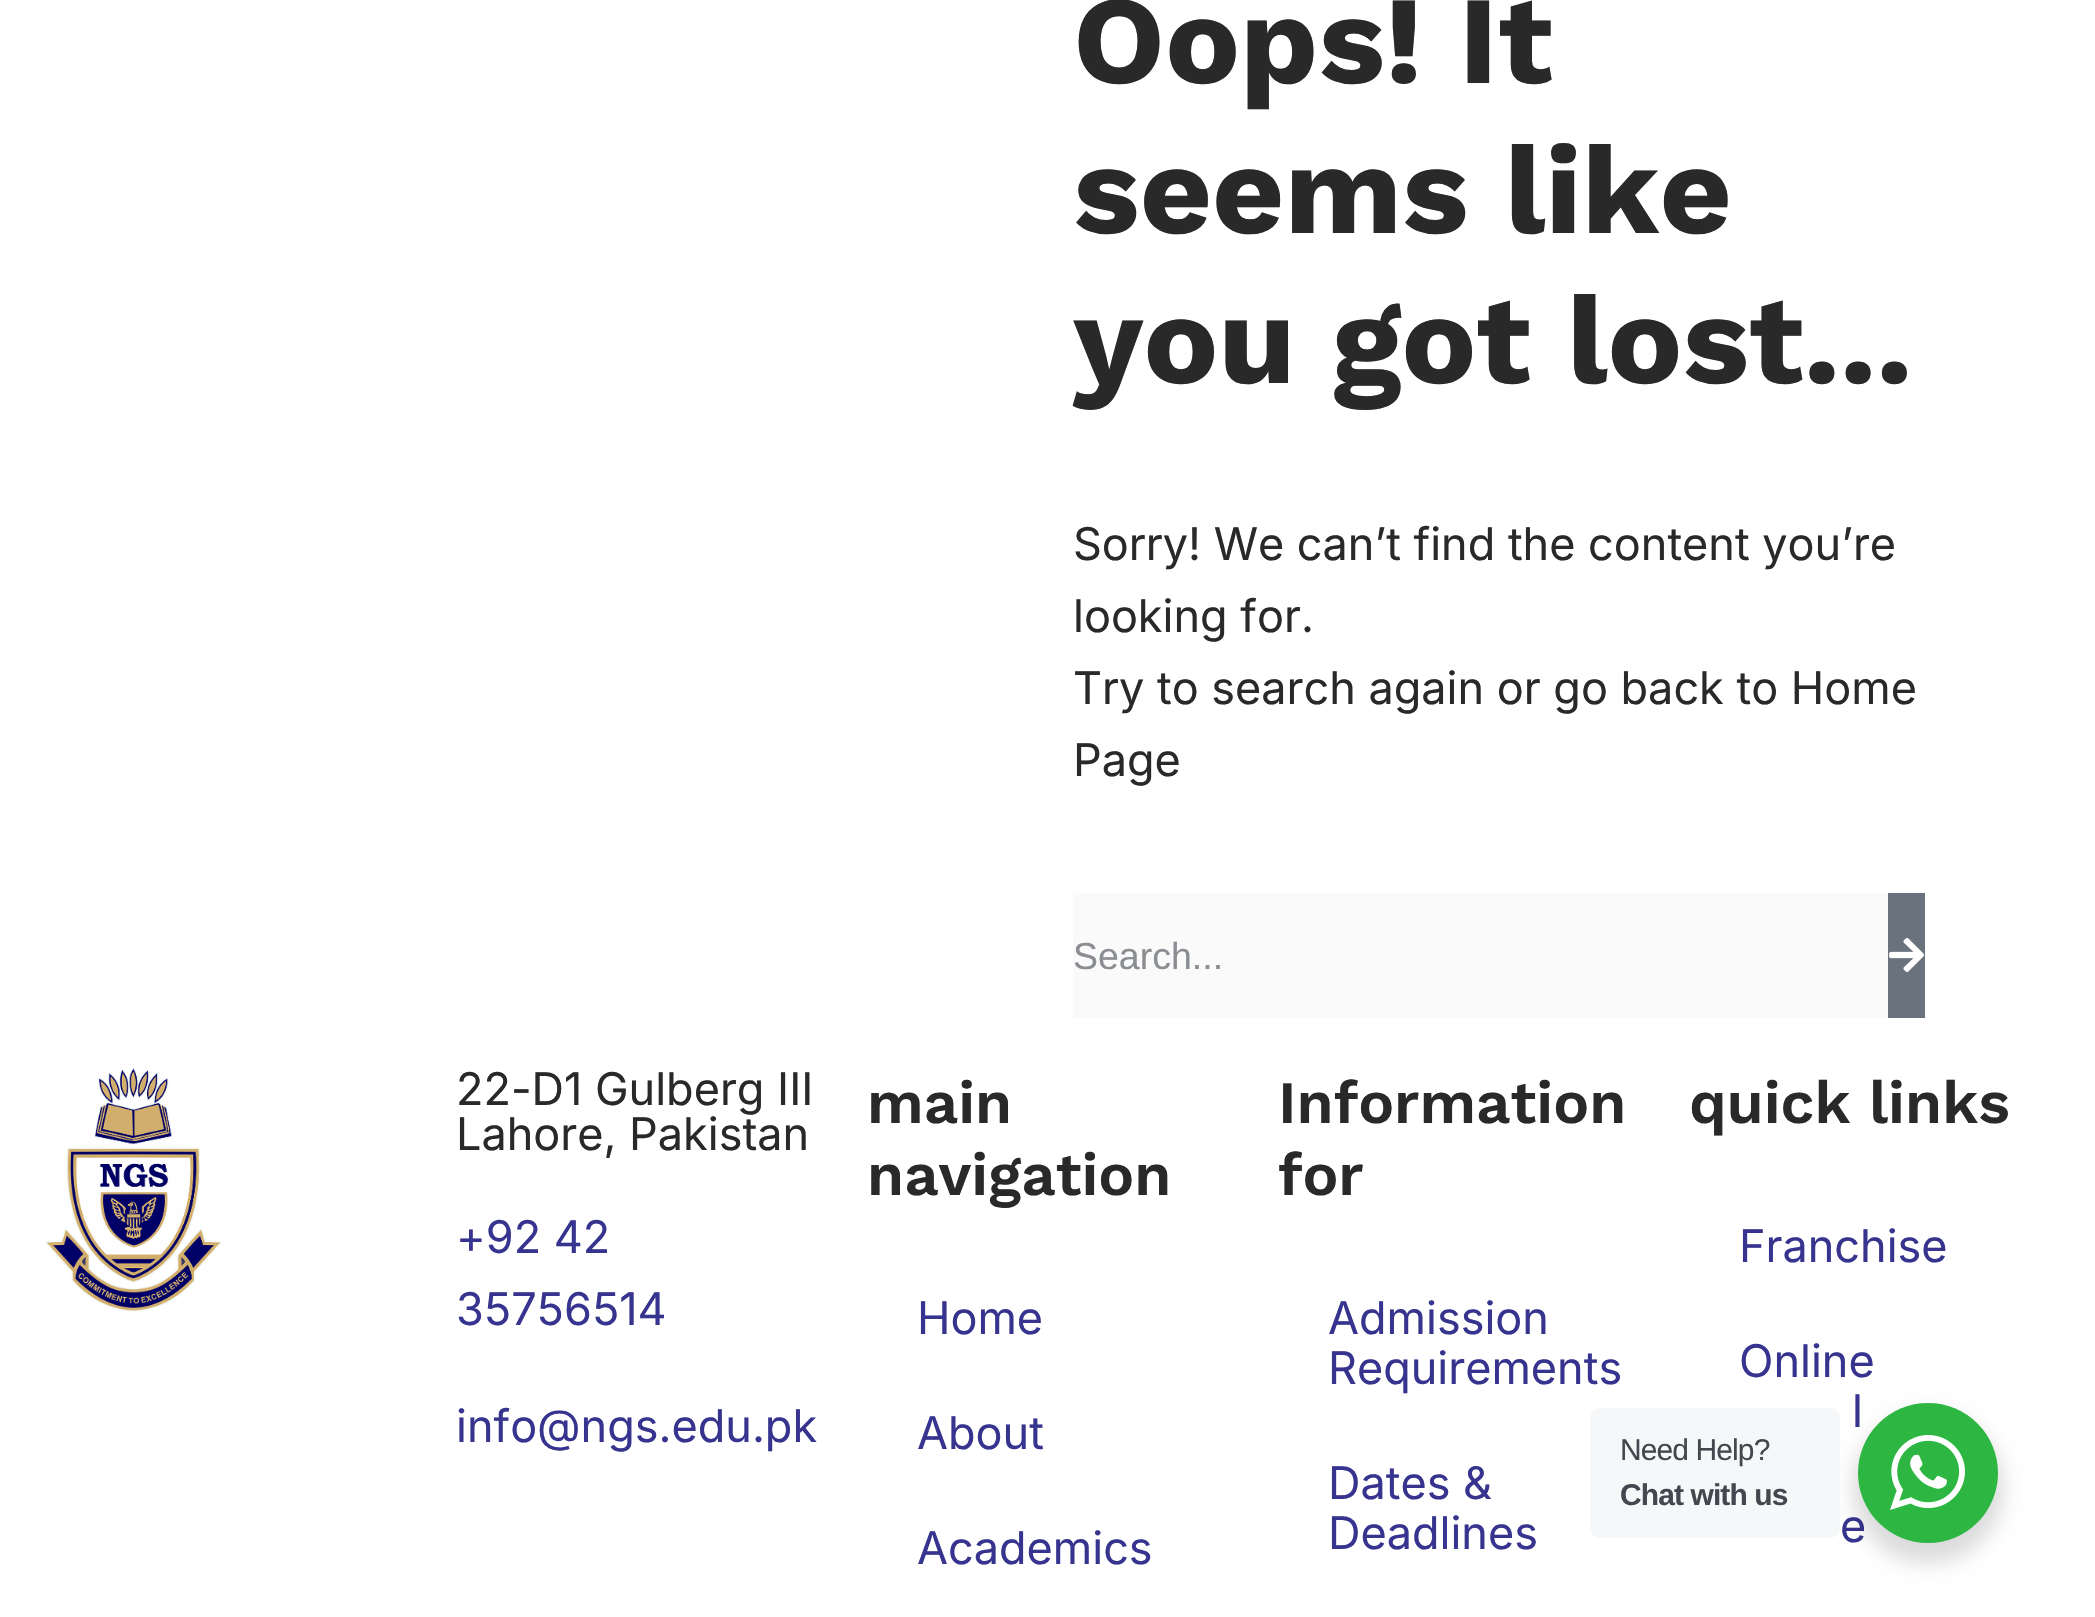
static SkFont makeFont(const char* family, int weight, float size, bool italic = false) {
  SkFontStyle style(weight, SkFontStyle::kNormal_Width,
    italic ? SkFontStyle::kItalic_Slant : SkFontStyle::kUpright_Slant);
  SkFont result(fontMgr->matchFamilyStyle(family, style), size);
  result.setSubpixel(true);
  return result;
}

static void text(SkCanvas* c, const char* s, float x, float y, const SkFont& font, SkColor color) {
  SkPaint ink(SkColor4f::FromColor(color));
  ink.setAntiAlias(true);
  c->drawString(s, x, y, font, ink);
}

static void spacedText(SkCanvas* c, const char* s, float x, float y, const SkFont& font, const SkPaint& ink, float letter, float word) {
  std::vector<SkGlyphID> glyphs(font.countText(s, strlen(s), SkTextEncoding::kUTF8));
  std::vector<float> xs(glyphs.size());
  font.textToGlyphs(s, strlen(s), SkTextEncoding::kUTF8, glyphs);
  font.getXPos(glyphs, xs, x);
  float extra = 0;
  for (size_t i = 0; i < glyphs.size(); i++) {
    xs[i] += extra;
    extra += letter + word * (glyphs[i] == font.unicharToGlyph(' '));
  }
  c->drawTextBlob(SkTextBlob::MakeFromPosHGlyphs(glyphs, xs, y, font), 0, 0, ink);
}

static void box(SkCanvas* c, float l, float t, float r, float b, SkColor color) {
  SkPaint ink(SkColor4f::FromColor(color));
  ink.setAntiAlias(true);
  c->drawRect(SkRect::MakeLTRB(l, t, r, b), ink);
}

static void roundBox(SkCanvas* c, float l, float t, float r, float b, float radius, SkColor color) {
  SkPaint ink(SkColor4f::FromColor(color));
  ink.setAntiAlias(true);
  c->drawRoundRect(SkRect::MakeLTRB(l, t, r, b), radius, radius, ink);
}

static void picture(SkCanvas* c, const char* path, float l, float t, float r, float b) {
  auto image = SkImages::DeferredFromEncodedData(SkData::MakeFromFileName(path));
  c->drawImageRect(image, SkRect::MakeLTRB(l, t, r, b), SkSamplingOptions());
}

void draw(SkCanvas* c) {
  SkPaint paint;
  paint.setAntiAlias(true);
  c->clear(0xffffffff);
  SkFont face1 = makeFont("Work Sans", 700, 125);
  text(c, "Oops! It", 1073, 83, face1, 0xff292929);
  text(c, "seems like", 1073, 233, face1, 0xff292929);
  text(c, "you got lost...", 1073, 383, face1, 0xff292929);
  SkFont face2 = makeFont("Inter", 400, 45);
  text(c, "Sorry! We can’t find the content you’re", 1073, 560, face2, 0xff292929);
  text(c, "looking for.", 1073, 632, face2, 0xff292929);
  text(c, "Try to search again or go back to Home", 1073, 704, face2, 0xff292929);
  text(c, "Page", 1073, 776, face2, 0xff292929);
  box(c, 1073, 893, 1888, 1018, 0xfffafafa);
  SkFont face3 = makeFont("Liberation Sans", 400, 37.5f);
  text(c, "Search...", 1073, 969, face3, 0xff8a8d91);
  box(c, 1888, 893, 1925, 1018, 0xff69727d);
  picture(c, "img_01.png", 1889, 938, 1925, 972);
  picture(c, "img_02.png", 45, 1067, 222, 1312);
  text(c, "22-D1 Gulberg III", 456, 1105, face2, 0xff292929);
  text(c, "Lahore, Pakistan", 456, 1150, face2, 0xff292929);
  text(c, "+92 42", 456, 1253, face2, 0xff36348e);
  text(c, "35756514", 456, 1325, face2, 0xff36348e);
  text(c, "info@ngs.edu.pk", 456, 1442, face2, 0xff36348e);
  SkFont face4 = makeFont("Work Sans", 600, 60);
  text(c, "main", 867, 1123, face4, 0xff292929);
  text(c, "navigation", 867, 1195, face4, 0xff292929);
  text(c, "Home", 917, 1334, face2, 0xff36348e);
  text(c, "About", 917, 1449, face2, 0xff36348e);
  text(c, "Academics", 917, 1564, face2, 0xff36348e);
  text(c, "Information", 1278, 1123, face4, 0xff292929);
  text(c, "for", 1278, 1195, face4, 0xff292929);
  text(c, "Admission", 1328, 1334, face2, 0xff36348e);
  text(c, "Requirements", 1328, 1384, face2, 0xff36348e);
  text(c, "Dates &", 1328, 1499, face2, 0xff36348e);
  text(c, "Deadlines", 1328, 1549, face2, 0xff36348e);
  text(c, "quick links", 1689, 1123, face4, 0xff292929);
  text(c, "Franchise", 1739, 1262, face2, 0xff36348e);
  text(c, "Online", 1739, 1377, face2, 0xff36348e);
  text(c, "l", 1852, 1427, face2, 0xff36348e);
  text(c, "e", 1840, 1542, face2, 0xff36348e);
  paint.setColor(0x24000000);
  paint.setMaskFilter(SkMaskFilter::MakeBlur(kNormal_SkBlurStyle, 10));
  c->drawRoundRect(SkRect::MakeLTRB(1853, 1413, 2003, 1563), 75, 75, paint);
  paint.setMaskFilter(nullptr);
  roundBox(c, 1590, 1408, 1840, 1538, 10, 0xfff5f7f9);
  SkFont face5 = makeFont("Liberation Sans", 400, 30);
  paint.setColor(0xff43474e);
  spacedText(c, "Need Help?", 1620, 1460, face5, paint, -0.9f, 0);
  SkFont face6 = makeFont("Liberation Sans", 700, 30);
  spacedText(c, "Chat with us", 1620, 1505, face6, paint, -0.9f, 0);
  paint.setColor(0xff2db742);
  c->drawCircle(1928, 1473, 70, paint);
  picture(c, "img_03.png", 1890, 1435, 1965, 1510);
}
